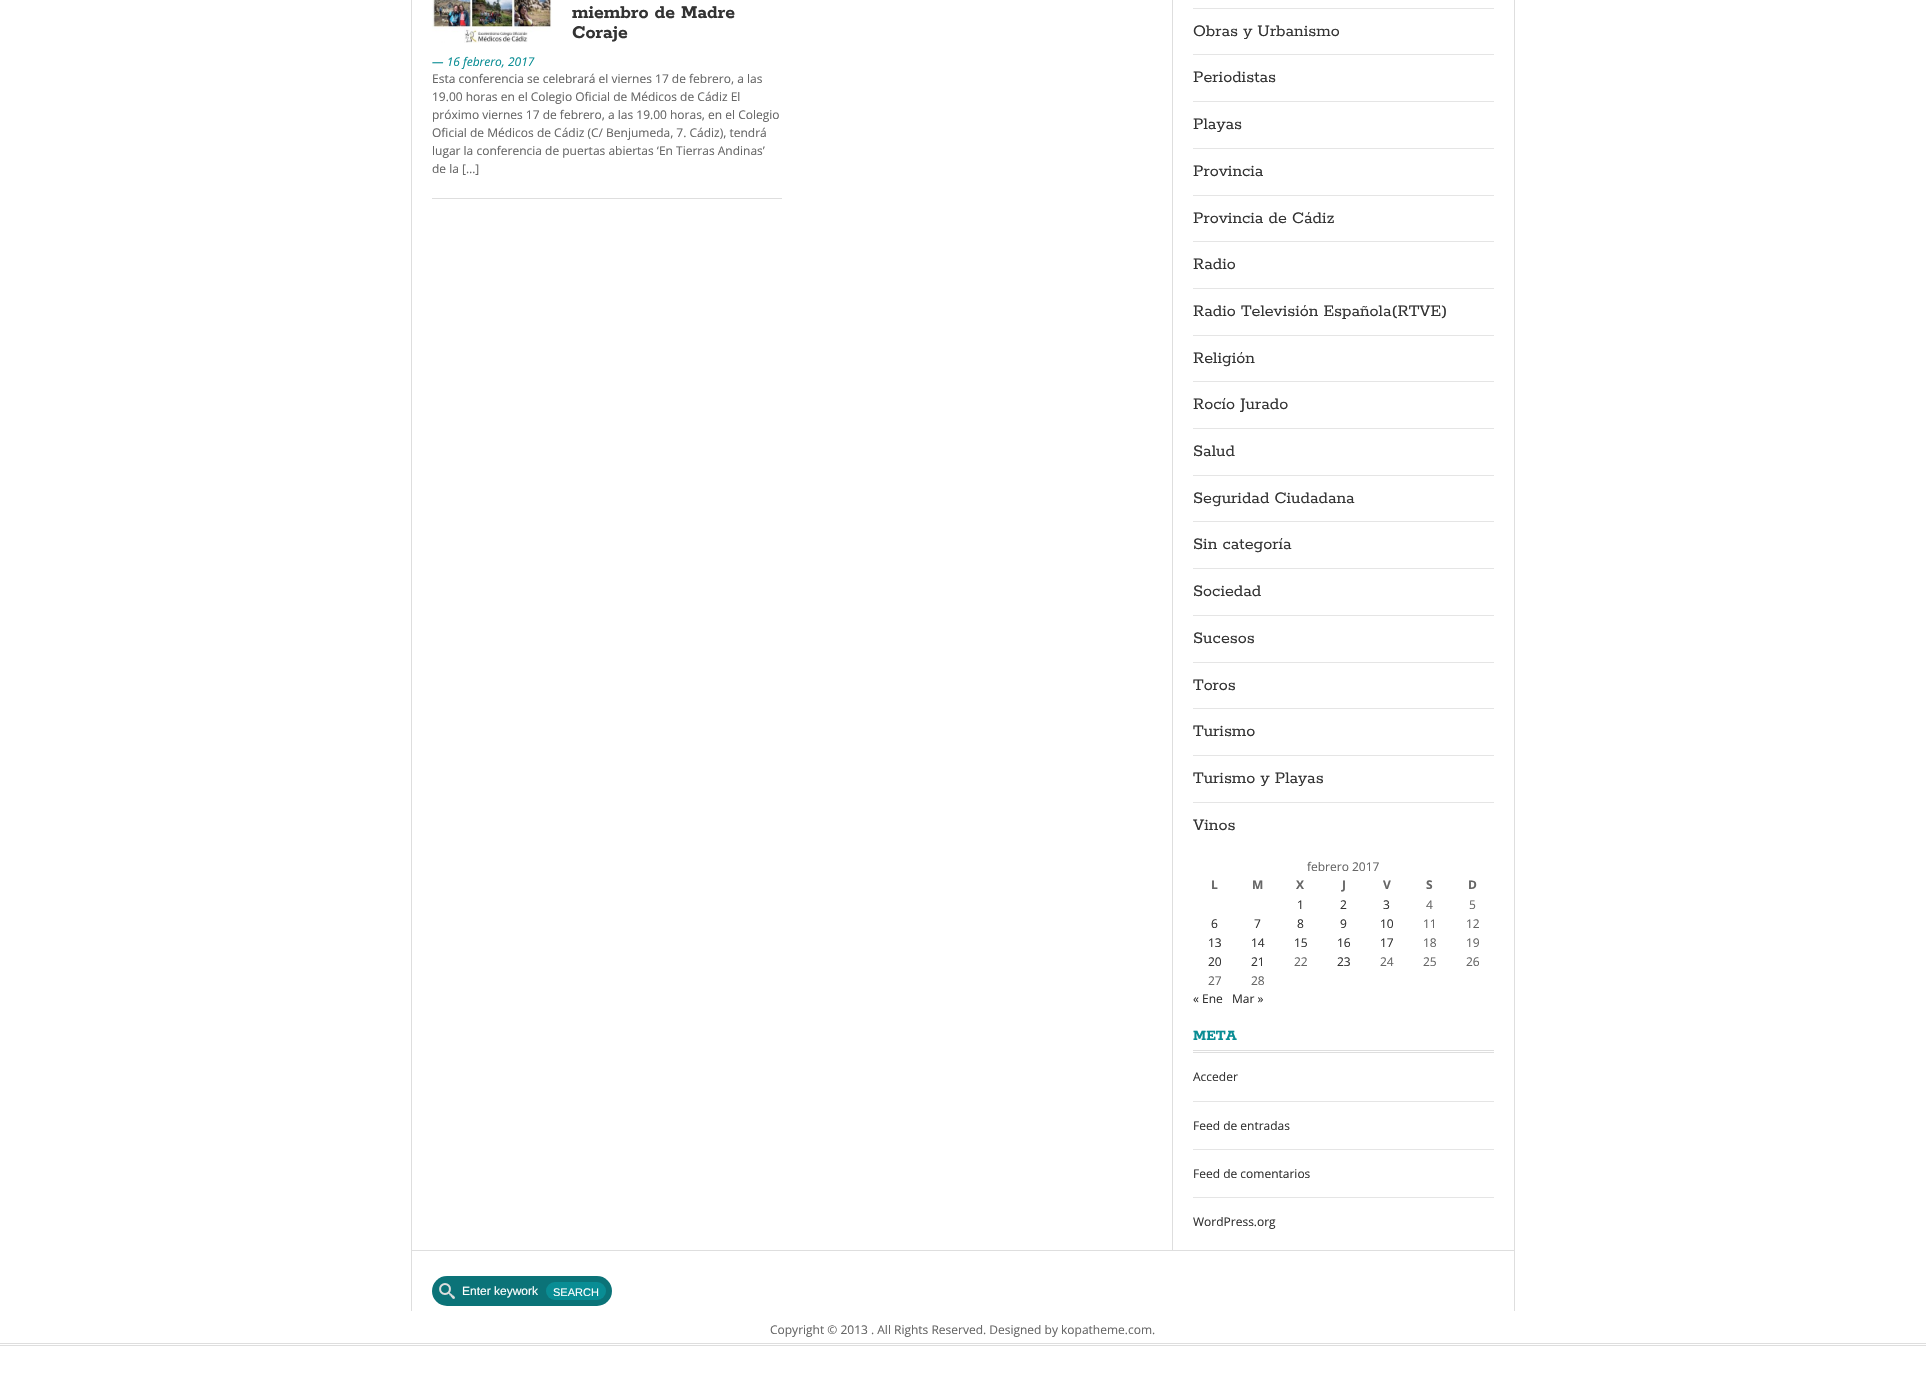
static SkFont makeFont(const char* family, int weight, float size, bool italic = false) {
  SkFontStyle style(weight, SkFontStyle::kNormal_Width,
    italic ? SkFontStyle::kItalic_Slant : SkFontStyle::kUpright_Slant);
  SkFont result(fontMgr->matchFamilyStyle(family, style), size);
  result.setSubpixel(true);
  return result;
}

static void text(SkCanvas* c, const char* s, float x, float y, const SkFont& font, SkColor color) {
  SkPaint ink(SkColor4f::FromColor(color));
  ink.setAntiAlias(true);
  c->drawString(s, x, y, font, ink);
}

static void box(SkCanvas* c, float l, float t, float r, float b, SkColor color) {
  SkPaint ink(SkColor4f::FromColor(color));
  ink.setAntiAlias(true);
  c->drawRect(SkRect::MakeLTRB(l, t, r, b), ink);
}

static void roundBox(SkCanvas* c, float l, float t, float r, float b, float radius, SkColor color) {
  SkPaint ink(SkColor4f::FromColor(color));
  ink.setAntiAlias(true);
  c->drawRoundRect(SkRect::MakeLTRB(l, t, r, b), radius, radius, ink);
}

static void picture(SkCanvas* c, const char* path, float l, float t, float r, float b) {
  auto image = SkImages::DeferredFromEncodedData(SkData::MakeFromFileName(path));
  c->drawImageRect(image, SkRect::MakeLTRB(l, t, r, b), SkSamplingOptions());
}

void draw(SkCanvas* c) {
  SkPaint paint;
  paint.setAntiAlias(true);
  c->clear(0xffffffff);
  box(c, 1514, 0, 1515, 1250, 0xffdedede);
  box(c, 411, 0, 412, 1250, 0xffdedede);
  box(c, 432, 198, 782, 199, 0xffdedede);
  picture(c, "img_01.png", 432, 0, 552, 43);
  SkFont face1 = makeFont("Rokkitt", 700, 20);
  text(c, "miembro de Madre", 572, 18, face1, 0xff333333);
  text(c, "Coraje", 572, 38, face1, 0xff333333);
  SkFont face2 = makeFont("Open Sans", 400, 12, true);
  text(c, "— 16 febrero, 2017", 432, 66, face2, 0xff098d94);
  SkFont face3 = makeFont("Open Sans", 400, 12);
  text(c, "Esta conferencia se celebrará el viernes 17 de febrero, a las", 432, 83, face3, 0xff666666);
  text(c, "19.00 horas en el Colegio Oficial de Médicos de Cádiz El", 432, 101, face3, 0xff666666);
  text(c, "próximo viernes 17 de febrero, a las 19.00 horas, en el Colegio", 432, 119, face3, 0xff666666);
  text(c, "Oficial de Médicos de Cádiz (C/ Benjumeda, 7. Cádiz), tendrá", 432, 137, face3, 0xff666666);
  text(c, "lugar la conferencia de puertas abiertas ‘En Tierras Andinas’", 432, 155, face3, 0xff666666);
  text(c, "de la […]", 432, 173, face3, 0xff666666);
  box(c, 1172, 0, 1173, 1250, 0xffdedede);
  box(c, 1193, 8, 1494, 9, 0xffe5e5e5);
  SkFont face4 = makeFont("Rokkitt", 400, 18);
  text(c, "Obras y Urbanismo", 1193, 36, face4, 0xff333333);
  box(c, 1193, 54, 1494, 55, 0xffe5e5e5);
  text(c, "Periodistas", 1193, 82, face4, 0xff333333);
  box(c, 1193, 101, 1494, 102, 0xffe5e5e5);
  text(c, "Playas", 1193, 129, face4, 0xff333333);
  box(c, 1193, 148, 1494, 149, 0xffe5e5e5);
  text(c, "Provincia", 1193, 176, face4, 0xff333333);
  box(c, 1193, 195, 1494, 196, 0xffe5e5e5);
  text(c, "Provincia de Cádiz", 1193, 223, face4, 0xff333333);
  box(c, 1193, 241, 1494, 242, 0xffe5e5e5);
  text(c, "Radio", 1193, 269, face4, 0xff333333);
  box(c, 1193, 288, 1494, 289, 0xffe5e5e5);
  text(c, "Radio Televisión Española(RTVE)", 1193, 316, face4, 0xff333333);
  box(c, 1193, 335, 1494, 336, 0xffe5e5e5);
  text(c, "Religión", 1193, 363, face4, 0xff333333);
  box(c, 1193, 381, 1494, 382, 0xffe5e5e5);
  text(c, "Rocío Jurado", 1193, 409, face4, 0xff333333);
  box(c, 1193, 428, 1494, 429, 0xffe5e5e5);
  text(c, "Salud", 1193, 456, face4, 0xff333333);
  box(c, 1193, 475, 1494, 476, 0xffe5e5e5);
  text(c, "Seguridad Ciudadana", 1193, 503, face4, 0xff333333);
  box(c, 1193, 521, 1494, 522, 0xffe5e5e5);
  text(c, "Sin categoría", 1193, 549, face4, 0xff333333);
  box(c, 1193, 568, 1494, 569, 0xffe5e5e5);
  text(c, "Sociedad", 1193, 596, face4, 0xff333333);
  box(c, 1193, 615, 1494, 616, 0xffe5e5e5);
  text(c, "Sucesos", 1193, 643, face4, 0xff333333);
  box(c, 1193, 662, 1494, 663, 0xffe5e5e5);
  text(c, "Toros", 1193, 690, face4, 0xff333333);
  box(c, 1193, 708, 1494, 709, 0xffe5e5e5);
  text(c, "Turismo", 1193, 736, face4, 0xff333333);
  box(c, 1193, 755, 1494, 756, 0xffe5e5e5);
  text(c, "Turismo y Playas", 1193, 783, face4, 0xff333333);
  box(c, 1193, 802, 1494, 803, 0xffe5e5e5);
  text(c, "Vinos", 1193, 830, face4, 0xff333333);
  text(c, "febrero 2017", 1307, 871, face3, 0xff666666);
  SkFont face5 = makeFont("Open Sans", 700, 12);
  text(c, "L", 1211, 889, face5, 0xff666666);
  text(c, "M", 1252, 889, face5, 0xff666666);
  text(c, "X", 1296, 889, face5, 0xff666666);
  text(c, "J", 1342, 889, face5, 0xff666666);
  text(c, "V", 1383, 889, face5, 0xff666666);
  text(c, "S", 1426, 889, face5, 0xff666666);
  text(c, "D", 1468, 889, face5, 0xff666666);
  text(c, "1", 1297, 909, face3, 0xff333333);
  text(c, "2", 1340, 909, face3, 0xff333333);
  text(c, "3", 1383, 909, face3, 0xff333333);
  text(c, "4", 1426, 909, face3, 0xff666666);
  text(c, "5", 1469, 909, face3, 0xff666666);
  text(c, "6", 1211, 928, face3, 0xff333333);
  text(c, "7", 1254, 928, face3, 0xff333333);
  text(c, "8", 1297, 928, face3, 0xff333333);
  text(c, "9", 1340, 928, face3, 0xff333333);
  text(c, "10", 1380, 928, face3, 0xff333333);
  text(c, "11", 1423, 928, face3, 0xff666666);
  text(c, "12", 1466, 928, face3, 0xff666666);
  text(c, "13", 1208, 947, face3, 0xff333333);
  text(c, "14", 1251, 947, face3, 0xff333333);
  text(c, "15", 1294, 947, face3, 0xff333333);
  text(c, "16", 1337, 947, face3, 0xff333333);
  text(c, "17", 1380, 947, face3, 0xff333333);
  text(c, "18", 1423, 947, face3, 0xff666666);
  text(c, "19", 1466, 947, face3, 0xff666666);
  text(c, "20", 1208, 966, face3, 0xff333333);
  text(c, "21", 1251, 966, face3, 0xff333333);
  text(c, "22", 1294, 966, face3, 0xff666666);
  text(c, "23", 1337, 966, face3, 0xff333333);
  text(c, "24", 1380, 966, face3, 0xff666666);
  text(c, "25", 1423, 966, face3, 0xff666666);
  text(c, "26", 1466, 966, face3, 0xff666666);
  text(c, "27", 1208, 985, face3, 0xff666666);
  text(c, "28", 1251, 985, face3, 0xff666666);
  text(c, "« Ene", 1193, 1003, face3, 0xff333333);
  text(c, "Mar »", 1232, 1003, face3, 0xff333333);
  box(c, 1193, 1050, 1494, 1051, 0xffdedede);
  box(c, 1193, 1052, 1494, 1053, 0xffdedede);
  SkFont face6 = makeFont("Rokkitt", 700, 16);
  text(c, "META", 1193, 1040, face6, 0xff098d94);
  text(c, "Acceder", 1193, 1081, face3, 0xff333333);
  box(c, 1193, 1101, 1494, 1102, 0xffe5e5e5);
  text(c, "Feed de entradas", 1193, 1130, face3, 0xff333333);
  box(c, 1193, 1149, 1494, 1150, 0xffe5e5e5);
  text(c, "Feed de comentarios", 1193, 1178, face3, 0xff333333);
  box(c, 1193, 1197, 1494, 1198, 0xffe5e5e5);
  text(c, "WordPress.org", 1193, 1226, face3, 0xff333333);
  box(c, 411, 1250, 1515, 1251, 0xffdedede);
  box(c, 1514, 1250, 1515, 1311, 0xffdedede);
  box(c, 411, 1250, 412, 1311, 0xffdedede);
  roundBox(c, 432, 1276, 612, 1306, 15, 0xff0b7378);
  picture(c, "img_02.png", 439, 1283, 455, 1299);
  SkFont face7 = makeFont("Liberation Sans", 400, 12);
  text(c, "Enter keywork", 462, 1295, face7, 0xffffffff);
  roundBox(c, 546, 1282, 606, 1300, 9, 0xff098d94);
  SkFont face8 = makeFont("Liberation Sans", 400, 11);
  text(c, "SEARCH", 553, 1296, face8, 0xffffffff);
  box(c, 0, 1343, 1926, 1344, 0xffdedede);
  box(c, 0, 1345, 1926, 1346, 0xffdedede);
  text(c, "Copyright © 2013 . All Rights Reserved. Designed by kopatheme.com.", 770, 1334, face3, 0xff666666);
}
